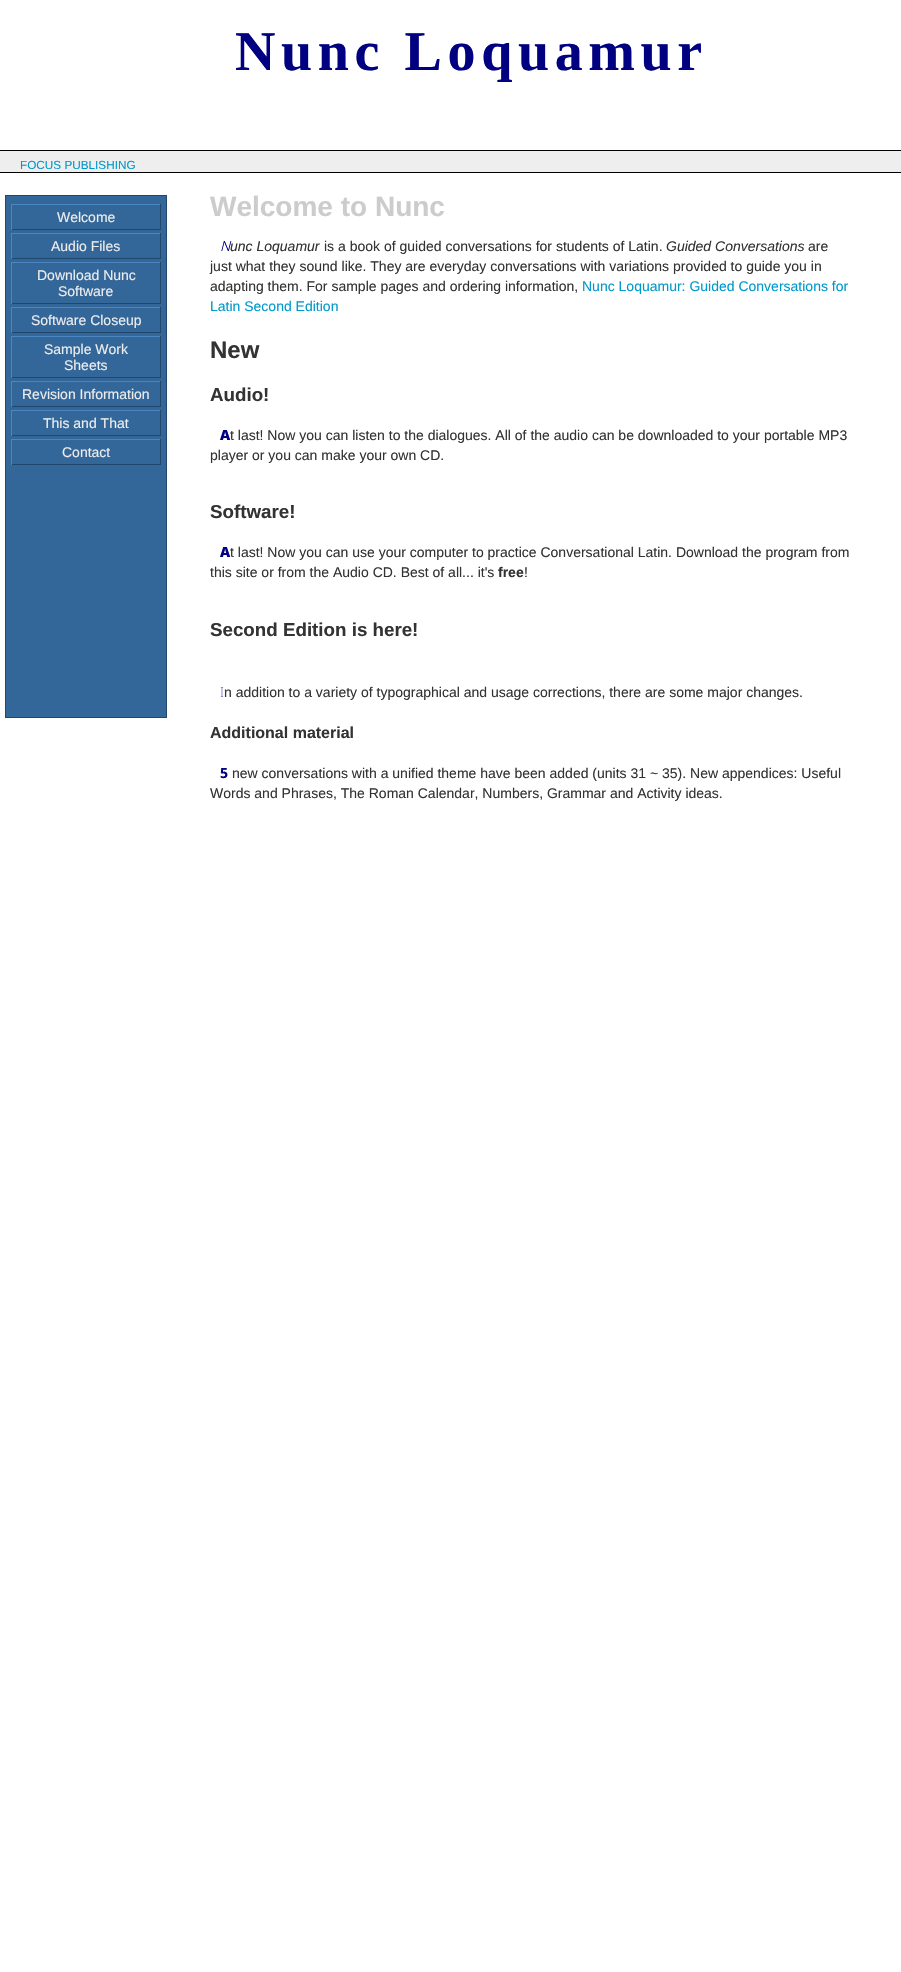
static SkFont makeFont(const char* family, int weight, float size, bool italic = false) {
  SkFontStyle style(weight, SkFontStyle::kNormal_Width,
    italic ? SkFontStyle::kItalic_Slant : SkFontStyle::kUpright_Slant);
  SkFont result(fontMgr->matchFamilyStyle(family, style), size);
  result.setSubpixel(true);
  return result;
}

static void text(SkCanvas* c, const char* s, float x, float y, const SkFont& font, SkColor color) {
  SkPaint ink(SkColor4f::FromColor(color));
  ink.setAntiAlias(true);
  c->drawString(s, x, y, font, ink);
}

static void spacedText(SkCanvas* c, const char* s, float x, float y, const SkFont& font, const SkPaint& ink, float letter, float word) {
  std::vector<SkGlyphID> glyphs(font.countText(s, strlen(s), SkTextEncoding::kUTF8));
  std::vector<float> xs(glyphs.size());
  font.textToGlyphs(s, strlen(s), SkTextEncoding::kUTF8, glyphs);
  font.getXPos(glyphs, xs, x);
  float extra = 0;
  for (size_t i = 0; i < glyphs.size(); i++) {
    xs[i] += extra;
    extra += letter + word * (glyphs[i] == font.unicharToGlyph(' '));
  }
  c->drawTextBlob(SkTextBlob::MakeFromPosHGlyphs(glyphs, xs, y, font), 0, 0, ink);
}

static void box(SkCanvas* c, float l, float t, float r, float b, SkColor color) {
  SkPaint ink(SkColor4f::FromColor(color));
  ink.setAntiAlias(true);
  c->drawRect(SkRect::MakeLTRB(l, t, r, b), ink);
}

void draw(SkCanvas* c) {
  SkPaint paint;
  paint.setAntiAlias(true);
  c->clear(0xffffffff);
  SkFont face1 = makeFont("Liberation Serif", 700, 56);
  paint.setColor(0xff000080);
  spacedText(c, "Nunc Loquamur", 235, 70, face1, paint, 5.6f, 0);
  box(c, 0, 151, 901, 172, 0xffeeeeee);
  box(c, 0, 150, 901, 151, 0xff000000);
  box(c, 0, 172, 901, 173, 0xff000000);
  SkFont face2 = makeFont("Liberation Sans", 400, 11.75f);
  text(c, "FOCUS PUBLISHING", 20, 169, face2, 0xff0099cc);
  paint.setColor(0xff336699);
  c->drawRect(SkRect::MakeLTRB(5.5f, 195.5f, 166.5f, 717.5f), paint);
  paint.setStyle(SkPaint::kStroke_Style);
  paint.setStrokeWidth(1);
  paint.setColor(0xff22476c);
  c->drawRect(SkRect::MakeLTRB(5.5f, 195.5f, 166.5f, 717.5f), paint);
  box(c, 11, 204, 161, 205, 0xff4c86c0);
  box(c, 160, 204, 161, 230, 0xff22476c);
  box(c, 11, 229, 161, 230, 0xff22476c);
  box(c, 11, 204, 12, 230, 0xff4c86c0);
  SkFont face3 = makeFont("Liberation Sans", 400, 14);
  text(c, "Welcome", 57, 222, face3, 0xffededed);
  box(c, 11, 233, 161, 234, 0xff4c86c0);
  box(c, 160, 233, 161, 259, 0xff22476c);
  box(c, 11, 258, 161, 259, 0xff22476c);
  box(c, 11, 233, 12, 259, 0xff4c86c0);
  text(c, "Audio Files", 51, 251, face3, 0xffededed);
  box(c, 11, 262, 161, 263, 0xff4c86c0);
  box(c, 160, 262, 161, 304, 0xff22476c);
  box(c, 11, 303, 161, 304, 0xff22476c);
  box(c, 11, 262, 12, 304, 0xff4c86c0);
  text(c, "Download Nunc", 37, 280, face3, 0xffededed);
  text(c, "Software", 58, 296, face3, 0xffededed);
  box(c, 11, 307, 161, 308, 0xff4c86c0);
  box(c, 160, 307, 161, 333, 0xff22476c);
  box(c, 11, 332, 161, 333, 0xff22476c);
  box(c, 11, 307, 12, 333, 0xff4c86c0);
  text(c, "Software Closeup", 31, 325, face3, 0xffededed);
  box(c, 11, 336, 161, 337, 0xff4c86c0);
  box(c, 160, 336, 161, 378, 0xff22476c);
  box(c, 11, 377, 161, 378, 0xff22476c);
  box(c, 11, 336, 12, 378, 0xff4c86c0);
  text(c, "Sample Work", 44, 354, face3, 0xffededed);
  text(c, "Sheets", 64, 370, face3, 0xffededed);
  box(c, 11, 381, 161, 382, 0xff4c86c0);
  box(c, 160, 381, 161, 407, 0xff22476c);
  box(c, 11, 406, 161, 407, 0xff22476c);
  box(c, 11, 381, 12, 407, 0xff4c86c0);
  text(c, "Revision Information", 22, 399, face3, 0xffededed);
  box(c, 11, 410, 161, 411, 0xff4c86c0);
  box(c, 160, 410, 161, 436, 0xff22476c);
  box(c, 11, 435, 161, 436, 0xff22476c);
  box(c, 11, 410, 12, 436, 0xff4c86c0);
  text(c, "This and That", 43, 428, face3, 0xffededed);
  box(c, 11, 439, 161, 440, 0xff4c86c0);
  box(c, 160, 439, 161, 465, 0xff22476c);
  box(c, 11, 464, 161, 465, 0xff22476c);
  box(c, 11, 439, 12, 465, 0xff4c86c0);
  text(c, "Contact", 62, 457, face3, 0xffededed);
  SkFont face4 = makeFont("Liberation Sans", 700, 28);
  text(c, "Welcome to Nunc", 210, 216, face4, 0xffcccccc);
  SkFont face5 = makeFont("Noto Sans", 300, 14, true);
  text(c, "N", 220, 251, face5, 0xff000080);
  SkFont face6 = makeFont("Liberation Sans", 400, 14, true);
  text(c, "unc Loquamur", 230, 251, face6, 0xff333333);
  text(c, "is a book of guided conversations for students of Latin.", 324, 251, face3, 0xff333333);
  text(c, "Guided Conversations", 666, 251, face6, 0xff333333);
  text(c, "are", 808, 251, face3, 0xff333333);
  text(c, "just what they sound like. They are everyday conversations with variations provided to guide you in", 210, 271, face3, 0xff333333);
  text(c, "adapting them. For sample pages and ordering information,", 210, 291, face3, 0xff333333);
  text(c, "Nunc Loquamur: Guided Conversations for", 582, 291, face3, 0xff0099cc);
  text(c, "Latin Second Edition", 210, 311, face3, 0xff0099cc);
  SkFont face7 = makeFont("Liberation Sans", 700, 24);
  text(c, "New", 210, 358, face7, 0xff333333);
  SkFont face8 = makeFont("Liberation Sans", 700, 18.75f);
  text(c, "Audio!", 210, 401, face8, 0xff333333);
  SkFont face9 = makeFont("Noto Sans", 900, 14);
  text(c, "A", 220, 440, face9, 0xff000080);
  text(c, "t last! Now you can listen to the dialogues. All of the audio can be downloaded to your portable MP3", 230, 440, face3, 0xff333333);
  text(c, "player or you can make your own CD.", 210, 460, face3, 0xff333333);
  text(c, "Software!", 210, 518, face8, 0xff333333);
  text(c, "A", 220, 557, face9, 0xff000080);
  text(c, "t last! Now you can use your computer to practice Conversational Latin. Download the program from", 230, 557, face3, 0xff333333);
  text(c, "this site or from the Audio CD. Best of all... it's", 210, 577, face3, 0xff333333);
  SkFont face10 = makeFont("Liberation Sans", 700, 14);
  text(c, "free", 498, 577, face10, 0xff333333);
  text(c, "!", 524, 577, face3, 0xff333333);
  text(c, "Second Edition is here!", 210, 636, face8, 0xff333333);
  SkFont face11 = makeFont("Noto Sans", 100, 14);
  text(c, "I", 220, 697, face11, 0xff000080);
  text(c, "n addition to a variety of typographical and usage corrections, there are some major changes.", 224, 697, face3, 0xff333333);
  SkFont face12 = makeFont("Liberation Sans", 700, 16);
  text(c, "Additional material", 210, 738, face12, 0xff333333);
  SkFont face13 = makeFont("Noto Sans", 700, 14);
  text(c, "5", 220, 778, face13, 0xff000080);
  text(c, "new conversations with a unified theme have been added (units 31 ~ 35). New appendices: Useful", 232, 778, face3, 0xff333333);
  text(c, "Words and Phrases, The Roman Calendar, Numbers, Grammar and Activity ideas.", 210, 798, face3, 0xff333333);
}
